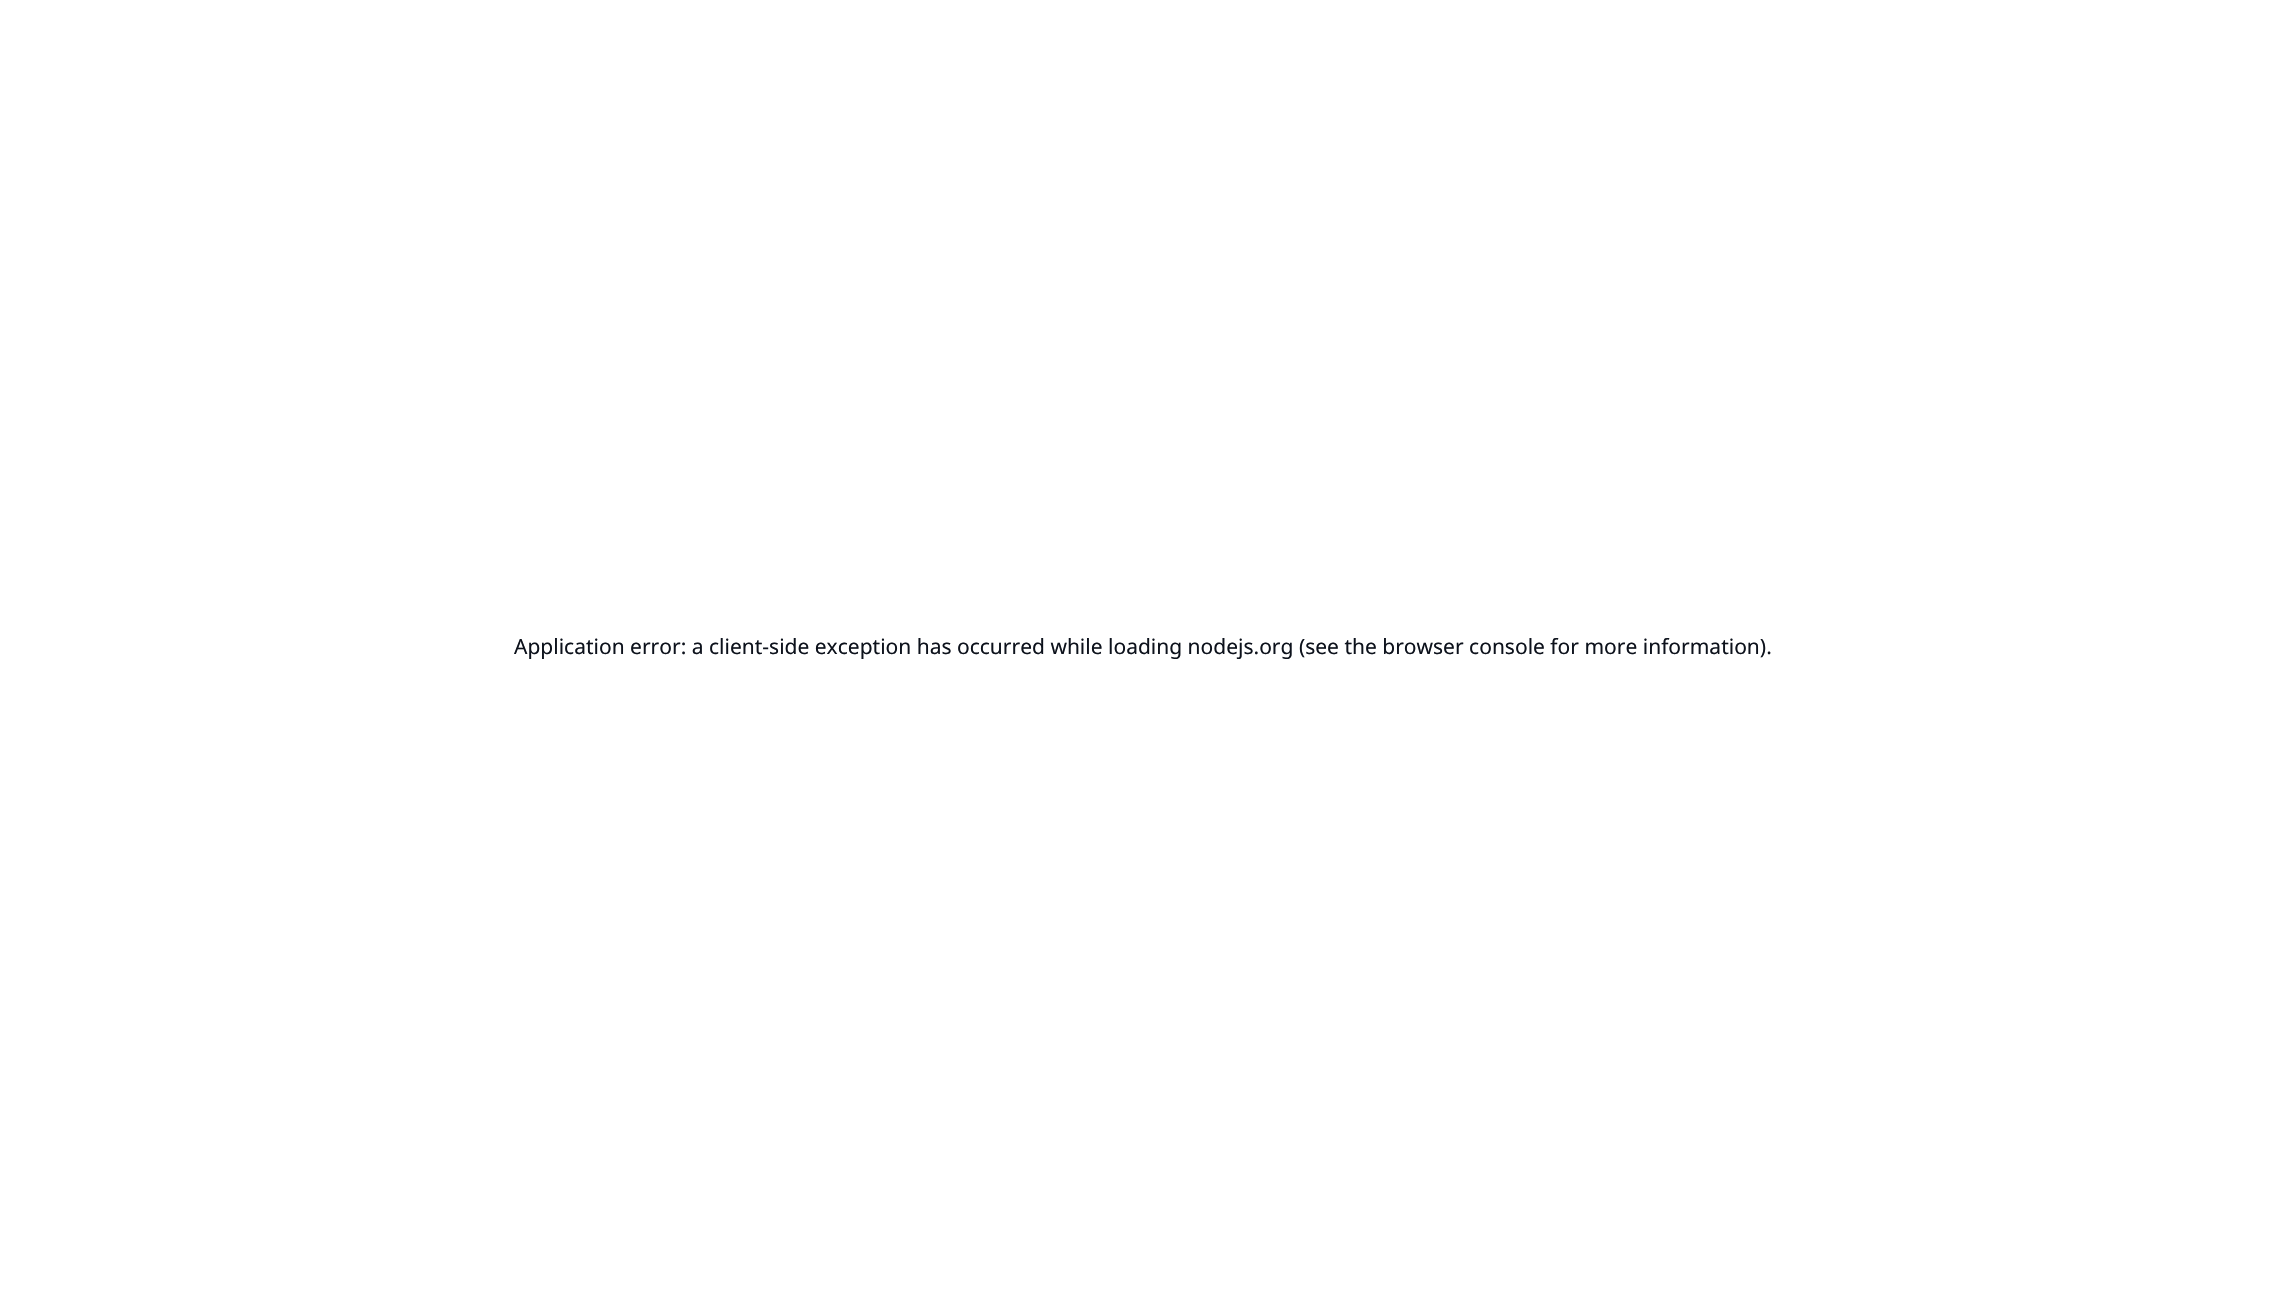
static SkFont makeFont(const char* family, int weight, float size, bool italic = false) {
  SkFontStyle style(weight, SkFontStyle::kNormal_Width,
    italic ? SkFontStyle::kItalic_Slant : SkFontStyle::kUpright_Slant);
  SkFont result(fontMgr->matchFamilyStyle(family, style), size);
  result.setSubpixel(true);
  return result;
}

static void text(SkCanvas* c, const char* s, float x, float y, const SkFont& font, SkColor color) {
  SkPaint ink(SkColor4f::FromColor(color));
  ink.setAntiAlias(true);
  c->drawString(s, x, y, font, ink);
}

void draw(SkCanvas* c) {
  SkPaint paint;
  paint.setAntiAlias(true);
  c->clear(0xffffffff);
  SkFont face1 = makeFont("Noto Sans", 400, 21);
  text(c, "Application error: a client-side exception has occurred while loading nodejs.org (see the browser console for more information).", 514, 654, face1, 0xff0d121c);
}
